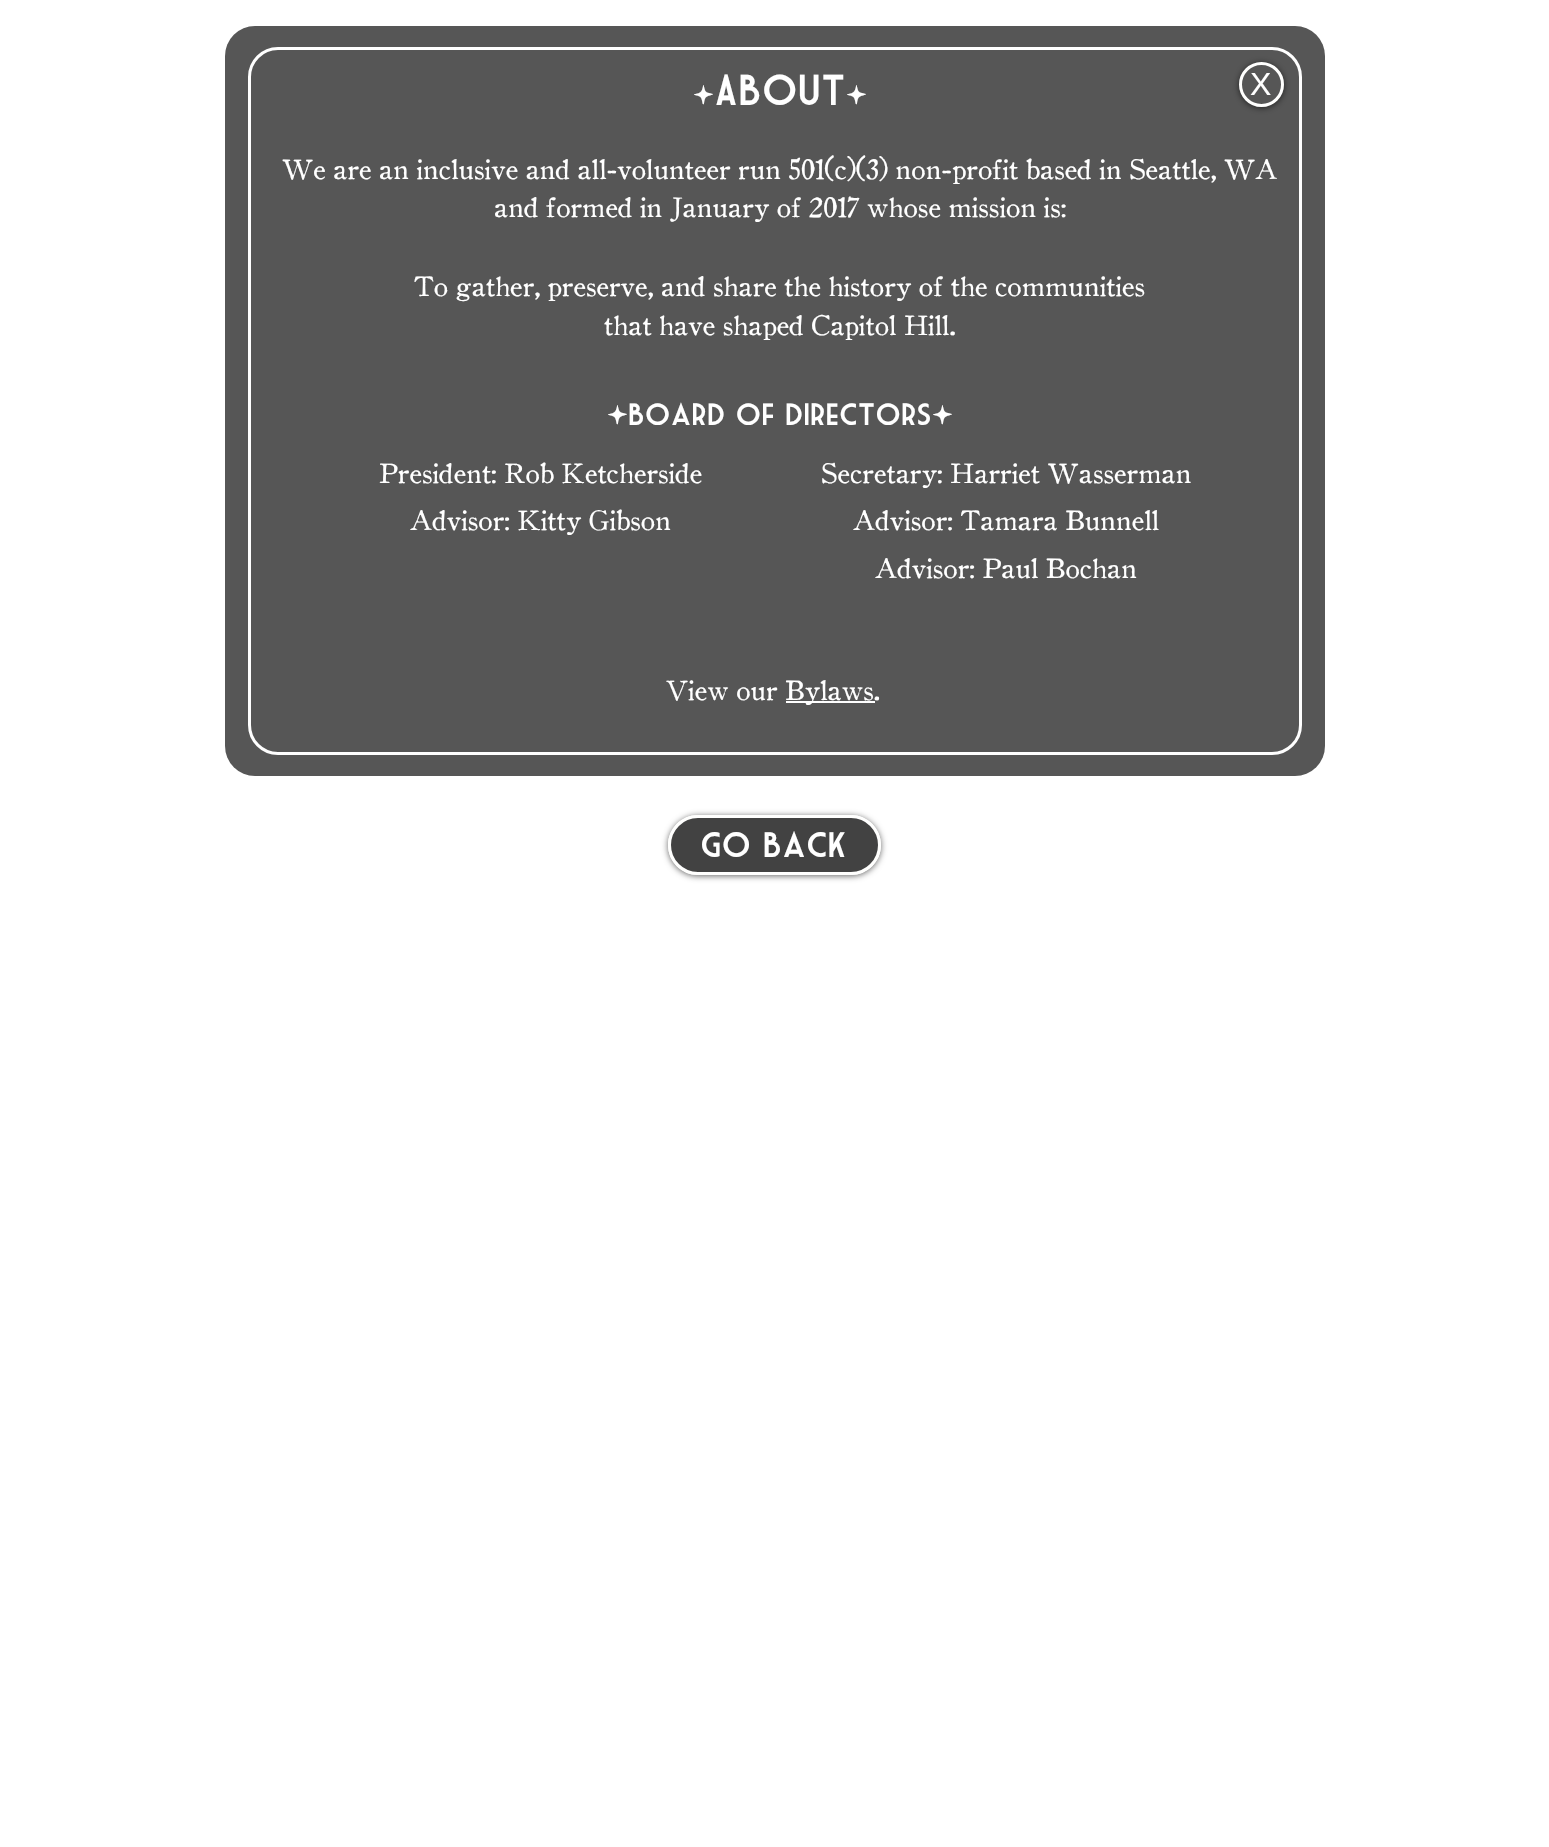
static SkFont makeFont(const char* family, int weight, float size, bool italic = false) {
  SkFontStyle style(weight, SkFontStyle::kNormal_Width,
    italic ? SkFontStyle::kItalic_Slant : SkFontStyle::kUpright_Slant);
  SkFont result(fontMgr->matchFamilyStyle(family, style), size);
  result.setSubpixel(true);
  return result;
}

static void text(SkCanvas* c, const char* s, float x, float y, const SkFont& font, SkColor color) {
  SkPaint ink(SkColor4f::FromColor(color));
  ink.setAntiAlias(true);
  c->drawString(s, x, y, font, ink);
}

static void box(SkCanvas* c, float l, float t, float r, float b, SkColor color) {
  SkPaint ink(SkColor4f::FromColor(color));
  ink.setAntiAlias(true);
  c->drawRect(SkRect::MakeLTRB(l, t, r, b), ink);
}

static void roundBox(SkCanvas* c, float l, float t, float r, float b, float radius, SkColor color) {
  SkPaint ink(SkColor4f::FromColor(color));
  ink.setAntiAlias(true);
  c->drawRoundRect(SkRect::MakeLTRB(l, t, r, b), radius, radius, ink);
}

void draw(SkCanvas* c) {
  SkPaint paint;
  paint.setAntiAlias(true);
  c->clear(0xffffffff);
  roundBox(c, 225, 26, 1325, 776, 30, 0xff565656);
  paint.setStyle(SkPaint::kStroke_Style);
  paint.setStrokeWidth(3);
  paint.setColor(0xffffffff);
  c->drawRoundRect(SkRect::MakeLTRB(249.5f, 48.5f, 1300.5f, 753.5f), 28.5f, 28.5f, paint);
  c->save();
  c->clipPath(SkPathBuilder(SkPathFillType::kEvenOdd).moveTo(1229, 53).lineTo(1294, 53).lineTo(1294, 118).lineTo(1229, 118).close().moveTo(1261.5f, 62).cubicTo(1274, 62, 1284, 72, 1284, 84.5f).cubicTo(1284, 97, 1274, 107, 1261.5f, 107).cubicTo(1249, 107, 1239, 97, 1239, 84.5f).cubicTo(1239, 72, 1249, 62, 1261.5f, 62).close().detach(), true);
  paint.setStyle(SkPaint::kFill_Style);
  paint.setColor(0x99000000);
  paint.setMaskFilter(SkMaskFilter::MakeBlur(kNormal_SkBlurStyle, 3));
  c->drawRoundRect(SkRect::MakeLTRB(1239, 63, 1284, 108), 22.5f, 22.5f, paint);
  paint.setMaskFilter(nullptr);
  c->restore();
  paint.setStyle(SkPaint::kStroke_Style);
  paint.setColor(0xfffffffe);
  c->drawCircle(1261.5f, 84.5f, 21, paint);
  SkFont face1 = makeFont("Liberation Sans", 400, 32);
  text(c, "X", 1250, 95, face1, 0xffffffff);
  SkFont face2 = makeFont("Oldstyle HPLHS", 400, 27);
  text(c, "President: Rob Ketcherside", 379, 483, face2, 0xffffffff);
  text(c, "Advisor: Kitty Gibson", 410, 530, face2, 0xffffffff);
  text(c, "Secretary: Harriet Wasserman", 821, 483, face2, 0xffffffff);
  text(c, "Advisor: Tamara Bunnell", 853, 530, face2, 0xffffffff);
  text(c, "Advisor: Paul Bochan", 875, 578, face2, 0xffffffff);
  text(c, "View our", 666, 700, face2, 0xffffffff);
  box(c, 786, 701, 875, 703, 0xffffffff);
  text(c, "Bylaws.", 785, 700, face2, 0xffffffff);
  SkFont face3 = makeFont("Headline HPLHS", 400, 42);
  text(c, "*", 693, 105, face3, 0xffffffff);
  SkFont face4 = makeFont("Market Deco", 400, 42);
  text(c, "ABOUT", 714, 105, face4, 0xffffffff);
  text(c, "*", 846, 105, face3, 0xffffffff);
  text(c, "We are an inclusive and all-volunteer run 501(c)(3) non-profit based in Seattle, WA", 282, 179, face2, 0xffffffff);
  text(c, "and formed in January of 2017 whose mission is:", 494, 217, face2, 0xffffffff);
  text(c, "To gather, preserve, and share the history of the communities", 414, 296, face2, 0xffffffff);
  text(c, "that have shaped Capitol Hill.", 604, 335, face2, 0xffffffff);
  text(c, "*", 607, 425, face3, 0xffffffff);
  SkFont face5 = makeFont("Market Deco", 400, 30);
  text(c, "Board of Directors", 628, 425, face5, 0xffffffff);
  text(c, "*", 932, 425, face3, 0xffffffff);
  c->save();
  c->clipPath(SkPathBuilder(SkPathFillType::kEvenOdd).moveTo(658, 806).lineTo(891, 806).lineTo(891, 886).lineTo(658, 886).close().moveTo(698, 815).lineTo(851, 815).cubicTo(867.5f, 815, 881, 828.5f, 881, 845).cubicTo(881, 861.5f, 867.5f, 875, 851, 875).lineTo(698, 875).cubicTo(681.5f, 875, 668, 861.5f, 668, 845).cubicTo(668, 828.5f, 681.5f, 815, 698, 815).close().detach(), true);
  paint.setStyle(SkPaint::kFill_Style);
  paint.setColor(0x99000000);
  paint.setMaskFilter(SkMaskFilter::MakeBlur(kNormal_SkBlurStyle, 3));
  c->drawRoundRect(SkRect::MakeLTRB(668, 816, 881, 876), 30, 30, paint);
  paint.setMaskFilter(nullptr);
  c->restore();
  paint.setColor(0xe32b2b2b);
  c->drawRoundRect(SkRect::MakeLTRB(669.5f, 816.5f, 879.5f, 873.5f), 28.5f, 28.5f, paint);
  paint.setStyle(SkPaint::kStroke_Style);
  paint.setColor(0xfffffffe);
  c->drawRoundRect(SkRect::MakeLTRB(669.5f, 816.5f, 879.5f, 873.5f), 28.5f, 28.5f, paint);
  SkFont face6 = makeFont("Market Deco", 400, 34.5f);
  text(c, "Go back", 700, 857, face6, 0xffffffff);
}
